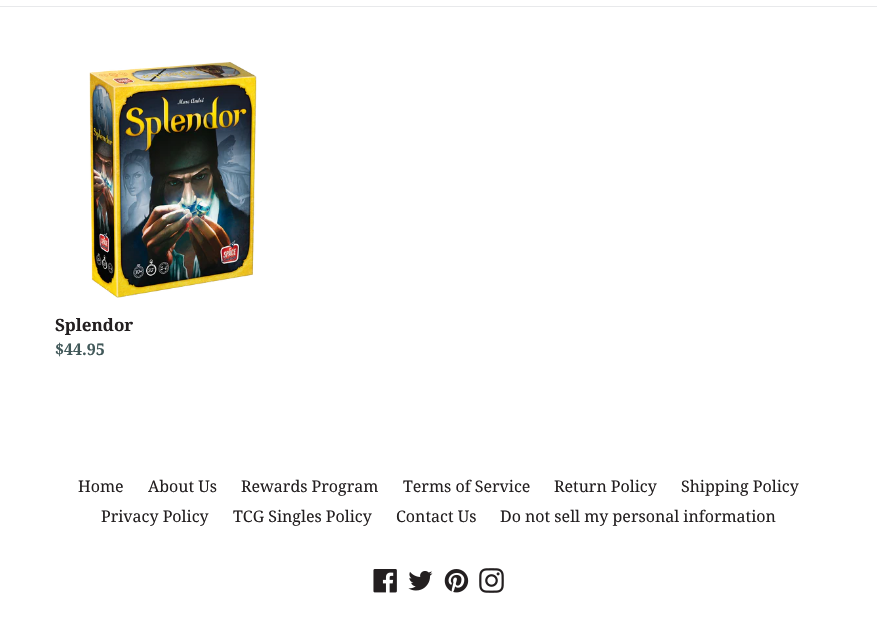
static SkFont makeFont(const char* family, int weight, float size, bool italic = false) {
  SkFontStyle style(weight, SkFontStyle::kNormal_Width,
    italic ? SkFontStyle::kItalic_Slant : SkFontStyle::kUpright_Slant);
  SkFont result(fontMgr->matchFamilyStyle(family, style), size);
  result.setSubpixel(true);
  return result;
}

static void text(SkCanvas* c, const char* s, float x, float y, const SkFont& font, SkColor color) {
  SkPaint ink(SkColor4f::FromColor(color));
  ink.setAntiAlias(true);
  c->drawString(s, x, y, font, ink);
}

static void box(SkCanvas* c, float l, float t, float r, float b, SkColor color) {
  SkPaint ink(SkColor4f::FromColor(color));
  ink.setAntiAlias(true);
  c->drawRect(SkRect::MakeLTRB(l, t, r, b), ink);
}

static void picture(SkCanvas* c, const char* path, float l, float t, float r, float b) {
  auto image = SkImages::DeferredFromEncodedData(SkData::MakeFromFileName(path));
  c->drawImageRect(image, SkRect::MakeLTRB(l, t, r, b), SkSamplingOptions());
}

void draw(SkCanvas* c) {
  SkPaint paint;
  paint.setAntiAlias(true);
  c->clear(0xffffffff);
  box(c, 0, 6, 877, 7, 0xffe8e9eb);
  picture(c, "img_01.png", 89, 62, 257, 298);
  SkFont face1 = makeFont("Noto Serif", 700, 17);
  text(c, "Splendor", 55, 331, face1, 0xff231f20);
  SkFont face2 = makeFont("Noto Serif", 700, 16);
  text(c, "$44.95", 55, 355, face2, 0xff42595a);
  SkFont face3 = makeFont("Noto Serif", 400, 16);
  text(c, "Home", 78, 492, face3, 0xff231f20);
  text(c, "About Us", 148, 492, face3, 0xff231f20);
  text(c, "Rewards Program", 241, 492, face3, 0xff231f20);
  text(c, "Terms of Service", 403, 492, face3, 0xff231f20);
  text(c, "Return Policy", 554, 492, face3, 0xff231f20);
  text(c, "Shipping Policy", 681, 492, face3, 0xff231f20);
  text(c, "Privacy Policy", 101, 522, face3, 0xff231f20);
  text(c, "TCG Singles Policy", 233, 522, face3, 0xff231f20);
  text(c, "Contact Us", 396, 522, face3, 0xff231f20);
  text(c, "Do not sell my personal information", 500, 522, face3, 0xff231f20);
  picture(c, "img_02.png", 373, 569, 397, 593);
  picture(c, "img_03.png", 408, 571, 433, 591);
  picture(c, "img_04.png", 444, 569, 469, 593);
  picture(c, "img_05.png", 479, 568, 504, 593);
}
